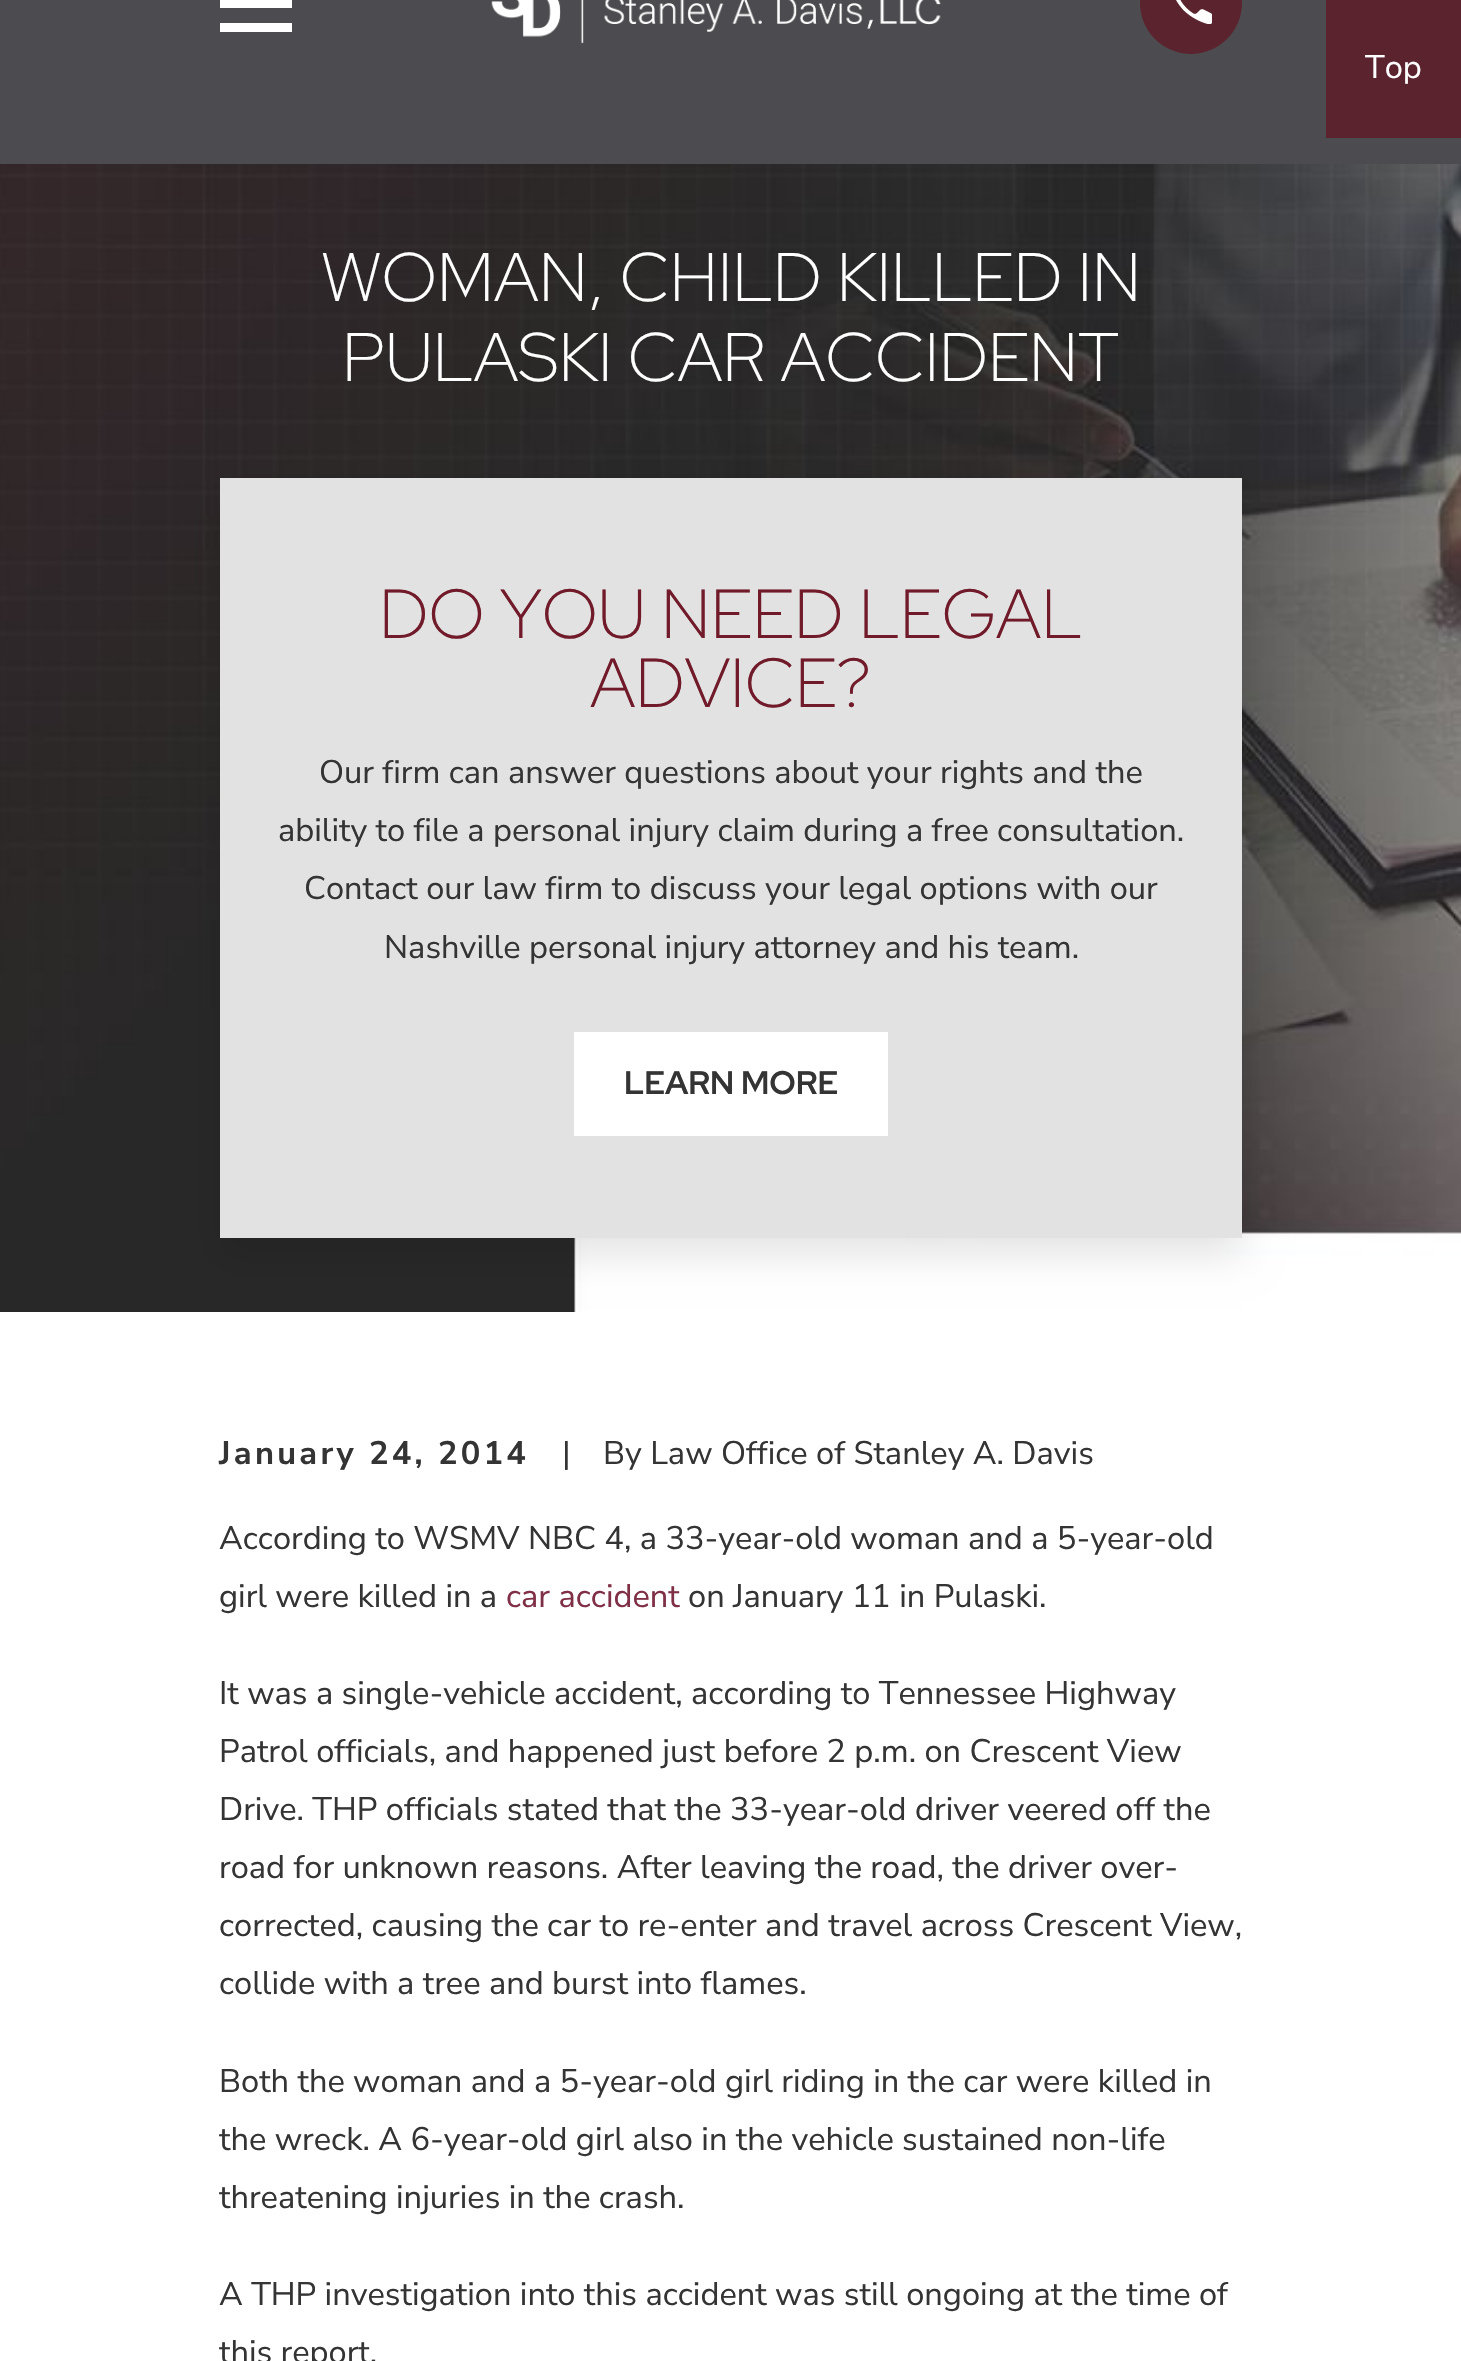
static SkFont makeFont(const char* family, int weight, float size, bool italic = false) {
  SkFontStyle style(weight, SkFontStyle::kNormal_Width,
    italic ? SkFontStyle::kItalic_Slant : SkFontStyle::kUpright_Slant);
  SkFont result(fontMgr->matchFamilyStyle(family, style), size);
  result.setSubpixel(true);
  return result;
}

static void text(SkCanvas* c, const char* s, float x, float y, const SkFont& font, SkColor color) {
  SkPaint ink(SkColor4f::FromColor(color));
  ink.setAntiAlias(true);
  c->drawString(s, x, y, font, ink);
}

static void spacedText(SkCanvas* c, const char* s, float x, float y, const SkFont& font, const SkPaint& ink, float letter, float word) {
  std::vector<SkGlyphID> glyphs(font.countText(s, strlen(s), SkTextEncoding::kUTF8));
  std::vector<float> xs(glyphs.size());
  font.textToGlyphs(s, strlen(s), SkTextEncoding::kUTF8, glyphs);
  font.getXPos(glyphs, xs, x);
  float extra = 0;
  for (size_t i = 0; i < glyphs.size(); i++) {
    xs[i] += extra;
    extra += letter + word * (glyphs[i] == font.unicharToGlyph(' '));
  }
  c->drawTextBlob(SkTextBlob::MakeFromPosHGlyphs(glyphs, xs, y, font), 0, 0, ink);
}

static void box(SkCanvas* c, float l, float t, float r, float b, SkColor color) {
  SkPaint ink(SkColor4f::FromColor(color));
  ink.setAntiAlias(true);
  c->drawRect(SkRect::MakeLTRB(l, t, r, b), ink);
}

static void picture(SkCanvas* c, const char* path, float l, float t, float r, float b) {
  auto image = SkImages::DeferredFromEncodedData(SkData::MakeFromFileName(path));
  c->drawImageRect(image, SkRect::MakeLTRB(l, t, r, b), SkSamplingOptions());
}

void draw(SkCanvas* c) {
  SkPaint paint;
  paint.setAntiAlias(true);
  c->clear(0xffffffff);
  box(c, 0, 0, 1461, 164, 0xff4c4b4f);
  paint.setColor(0xffffffff);
  c->drawPath(SkPathBuilder().moveTo(220, -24).lineTo(220, -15).lineTo(292, -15).lineTo(292, -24).close().moveTo(220, -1).lineTo(220, 8).lineTo(292, 8).lineTo(292, 0).close().moveTo(220, 23).lineTo(220, 32).lineTo(292, 32).lineTo(292, 23).close().detach(), paint);
  picture(c, "img_01.png", 491, 0, 941, 44);
  paint.setColor(0xff5a232d);
  c->drawCircle(1191, 3, 51, paint);
  picture(c, "img_02.png", 1176, 0, 1212, 24);
  box(c, 1326, 0, 1461, 138, 0xff5a232d);
  SkFont face1 = makeFont("Nunito Sans", 400, 32.6f);
  text(c, "Top", 1365, 78, face1, 0xffffffff);
  picture(c, "img_03.png", 0, 164, 1461, 1312);
  SkFont face2 = makeFont("Red Hat Display", 300, 68.5f);
  text(c, "WOMAN, CHILD KILLED IN", 321, 301, face2, 0xffffffff);
  text(c, "PULASKI CAR ACCIDENT", 342, 381, face2, 0xffffffff);
  paint.setColor(0x1a000000);
  paint.setMaskFilter(SkMaskFilter::MakeBlur(kNormal_SkBlurStyle, 18));
  c->drawRect(SkRect::MakeLTRB(220, 496, 1242, 1256), paint);
  paint.setMaskFilter(nullptr);
  box(c, 220, 478, 1242, 1238, 0xffe2e2e2);
  SkFont face3 = makeFont("Red Hat Display", 300, 69.25f);
  text(c, "DO YOU NEED LEGAL", 379, 638, face3, 0xff711a2a);
  text(c, "ADVICE?", 590, 707, face3, 0xff711a2a);
  text(c, "Our firm can answer questions about your rights and the", 319, 783, face1, 0xff343434);
  text(c, "ability to file a personal injury claim during a free consultation.", 278, 841, face1, 0xff343434);
  text(c, "Contact our law firm to discuss your legal options with our", 304, 899, face1, 0xff343434);
  text(c, "Nashville personal injury attorney and his team.", 384, 958, face1, 0xff343434);
  box(c, 574, 1032, 888, 1136, 0xffffffff);
  SkFont face4 = makeFont("Red Hat Display", 700, 32.6f);
  text(c, "LEARN MORE", 624, 1094, face4, 0xff343434);
  SkFont face5 = makeFont("Nunito Sans", 700, 32.6f);
  paint.setColor(0xff343434);
  spacedText(c, "January 24, 2014", 219, 1464, face5, paint, 3.25f, 0);
  text(c, "|", 562, 1464, face1, 0xff343434);
  text(c, "By Law Office of Stanley A. Davis", 603, 1464, face1, 0xff343434);
  text(c, "According to WSMV NBC 4, a 33-year-old woman and a 5-year-old", 219, 1549, face1, 0xff343434);
  text(c, "girl were killed in a", 219, 1607, face1, 0xff343434);
  text(c, "car accident", 506, 1607, face1, 0xff7f3047);
  text(c, "on January 11 in Pulaski.", 688, 1607, face1, 0xff343434);
  text(c, "It was a single-vehicle accident, according to Tennessee Highway", 219, 1704, face1, 0xff343434);
  text(c, "Patrol officials, and happened just before 2 p.m. on Crescent View", 219, 1762, face1, 0xff343434);
  text(c, "Drive. THP officials stated that the 33-year-old driver veered off the", 219, 1820, face1, 0xff343434);
  text(c, "road for unknown reasons. After leaving the road, the driver over-", 219, 1878, face1, 0xff343434);
  text(c, "corrected, causing the car to re-enter and travel across Crescent View,", 219, 1936, face1, 0xff343434);
  text(c, "collide with a tree and burst into flames.", 219, 1994, face1, 0xff343434);
  text(c, "Both the woman and a 5-year-old girl riding in the car were killed in", 219, 2092, face1, 0xff343434);
  text(c, "the wreck. A 6-year-old girl also in the vehicle sustained non-life", 219, 2150, face1, 0xff343434);
  text(c, "threatening injuries in the crash.", 219, 2208, face1, 0xff343434);
  text(c, "A THP investigation into this accident was still ongoing at the time of", 219, 2305, face1, 0xff343434);
  text(c, "this report.", 219, 2363, face1, 0xff343434);
}
